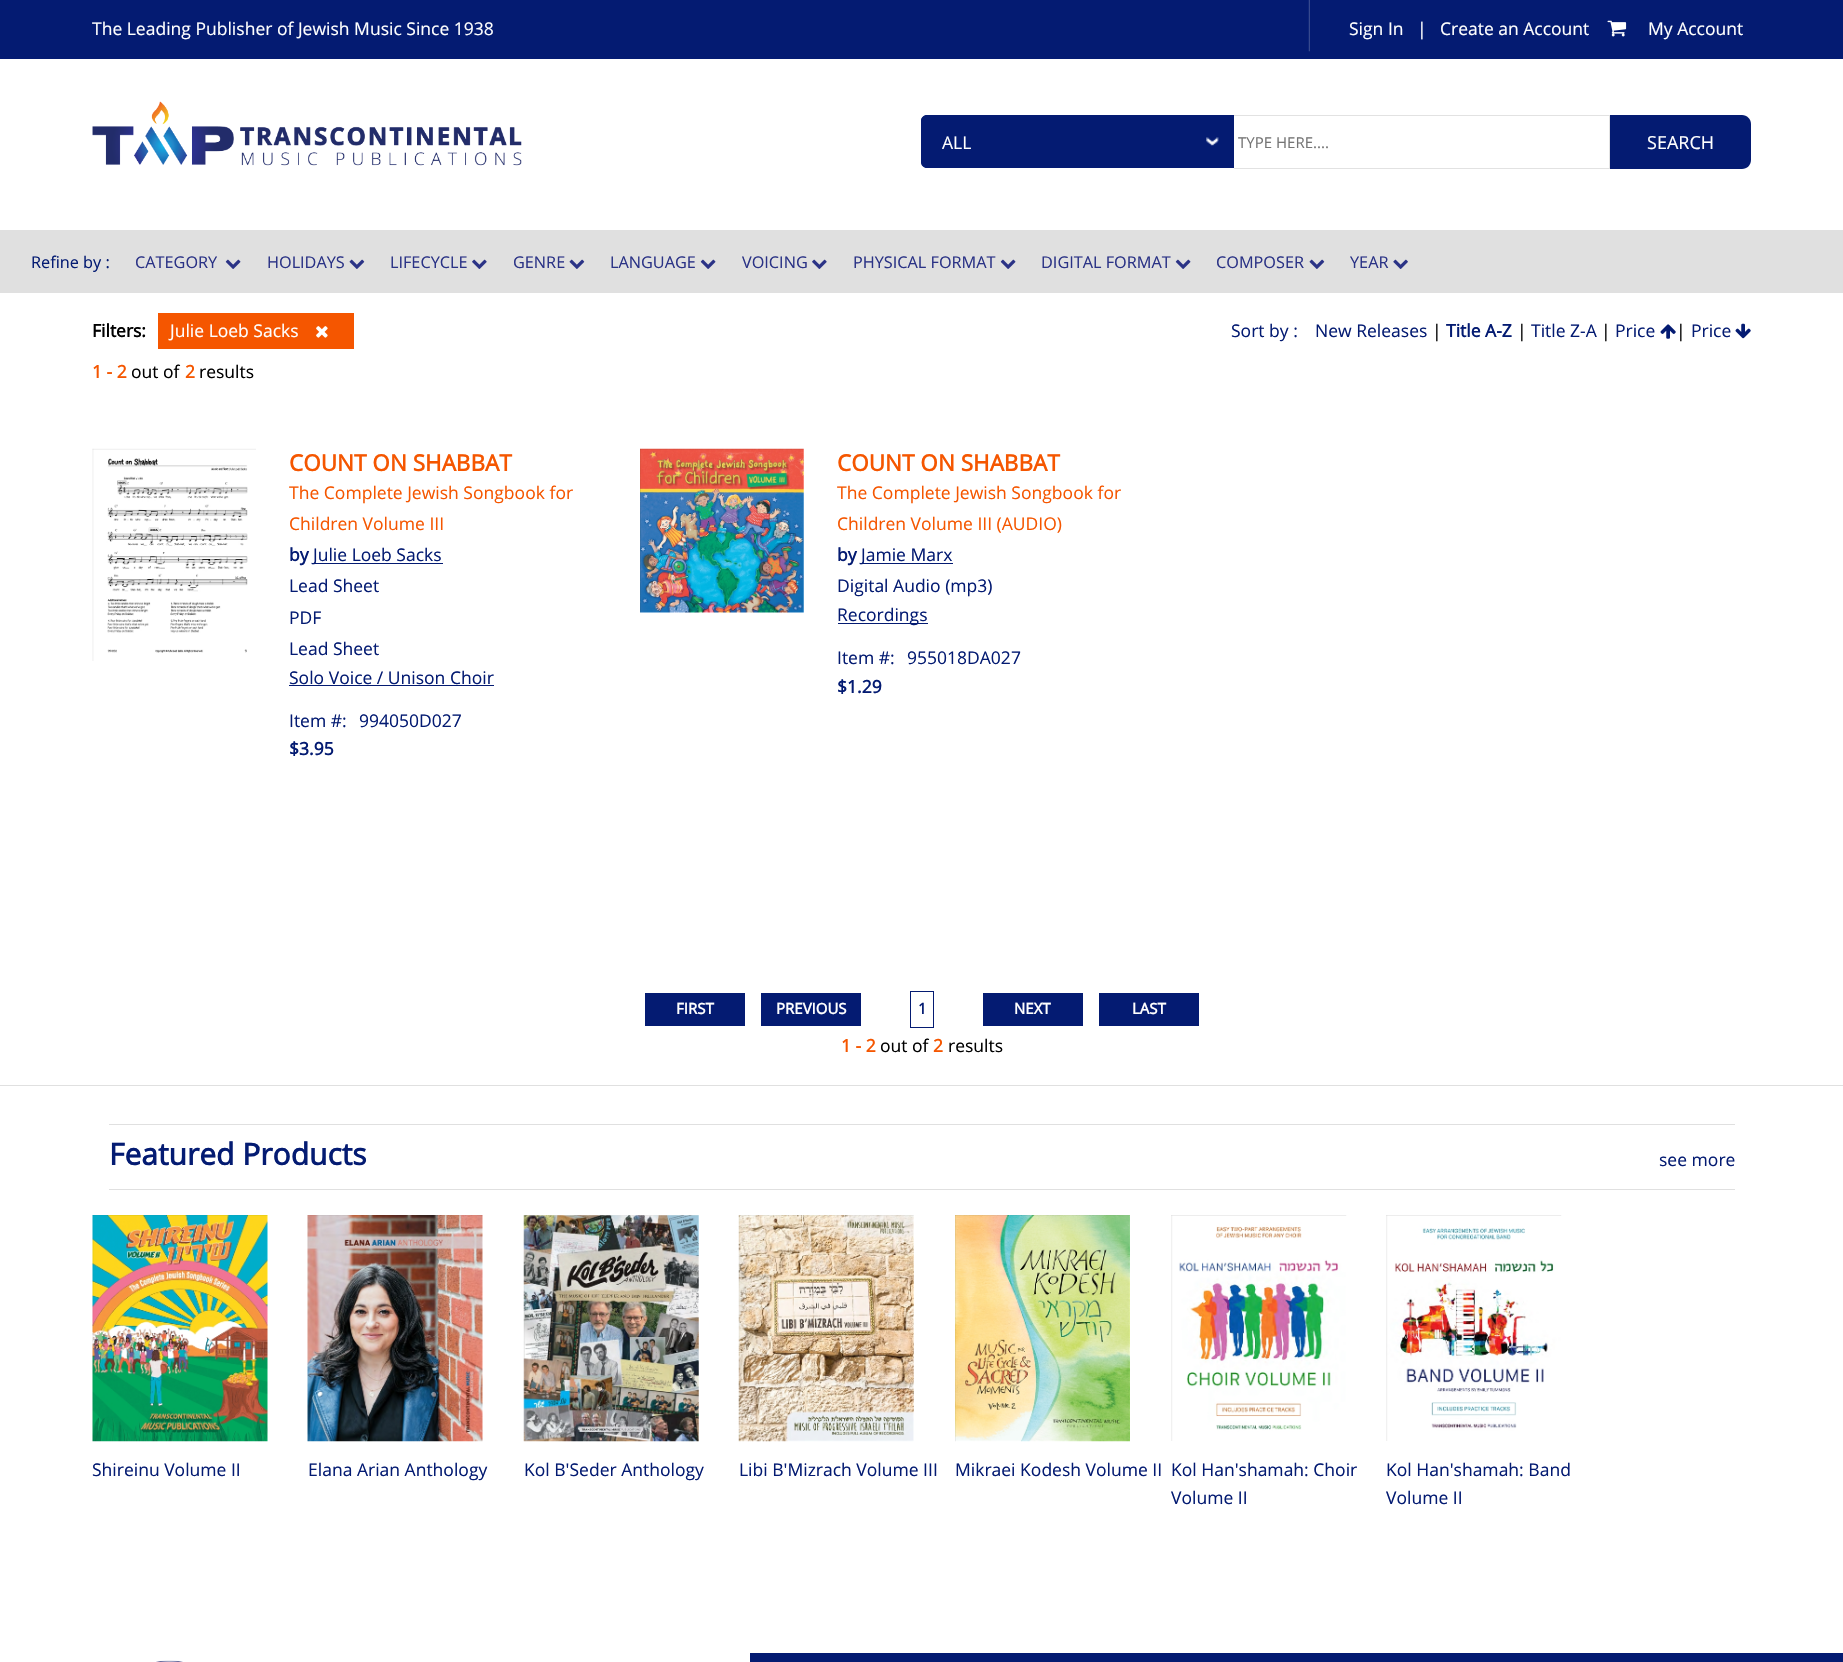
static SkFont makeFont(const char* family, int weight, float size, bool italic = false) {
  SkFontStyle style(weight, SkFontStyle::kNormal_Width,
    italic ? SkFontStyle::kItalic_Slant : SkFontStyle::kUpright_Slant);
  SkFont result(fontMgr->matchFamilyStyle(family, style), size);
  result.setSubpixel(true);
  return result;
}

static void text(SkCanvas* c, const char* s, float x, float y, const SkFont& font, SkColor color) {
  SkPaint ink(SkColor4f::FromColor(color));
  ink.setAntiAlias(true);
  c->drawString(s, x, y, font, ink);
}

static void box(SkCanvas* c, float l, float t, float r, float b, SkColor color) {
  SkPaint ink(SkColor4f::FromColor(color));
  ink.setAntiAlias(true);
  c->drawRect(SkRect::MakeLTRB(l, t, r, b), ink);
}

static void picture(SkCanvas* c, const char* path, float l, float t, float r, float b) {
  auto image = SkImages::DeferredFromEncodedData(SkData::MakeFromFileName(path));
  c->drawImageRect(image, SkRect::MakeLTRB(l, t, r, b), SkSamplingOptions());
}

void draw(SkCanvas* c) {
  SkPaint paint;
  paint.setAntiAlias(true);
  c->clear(0xffffffff);
  box(c, 0, 0, 1843, 59, 0xff041b72);
  SkFont face1 = makeFont("Open Sans", 400, 17.5f);
  text(c, "The Leading Publisher of Jewish Music Since 1938", 92, 35, face1, 0xffffffff);
  picture(c, "img_01.png", 1308, 0, 1310, 52);
  text(c, "Sign In", 1349, 35, face1, 0xffffffff);
  text(c, "|", 1417, 35, face1, 0xffffffff);
  text(c, "Create an Account", 1440, 35, face1, 0xffffffff);
  picture(c, "img_02.png", 1607, 20, 1627, 37);
  text(c, "My Account", 1648, 35, face1, 0xffffffff);
  picture(c, "img_03.png", 92, 101, 522, 166);
  paint.setColor(0xff041b72);
  c->drawPath(SkPathBuilder().moveTo(927, 115).lineTo(1234, 115).lineTo(1234, 168).lineTo(927, 168).cubicTo(923.5f, 168, 921, 165.5f, 921, 162).lineTo(921, 121).cubicTo(921, 117.5f, 923.5f, 115, 927, 115).close().detach(), paint);
  c->drawPath(SkPathBuilder(SkPathFillType::kEvenOdd).moveTo(928, 115).lineTo(1234, 115).lineTo(1234, 168).lineTo(928, 168).cubicTo(924, 168, 921, 165, 921, 161).lineTo(921, 121).cubicTo(921, 118, 924, 115, 928, 115).close().moveTo(928, 116).lineTo(1234, 116).lineTo(1234, 166).lineTo(928, 166).cubicTo(925, 166, 922, 164, 922, 161).lineTo(922, 121).cubicTo(922, 118, 925, 116, 928, 116).close().detach(), paint);
  text(c, "ALL", 942, 149, face1, 0xffffffff);
  picture(c, "img_04.png", 1206, 137, 1219, 146);
  c->drawPath(SkPathBuilder().moveTo(1609, 115).lineTo(1742, 115).cubicTo(1747, 115, 1751, 119, 1751, 124).lineTo(1751, 160).cubicTo(1751, 165, 1747, 169, 1742, 169).lineTo(1609, 169).close().detach(), paint);
  box(c, 1234, 115, 1610, 116, 0xffe2e2e2);
  box(c, 1609, 115, 1610, 169, 0xffe2e2e2);
  box(c, 1234, 168, 1610, 169, 0xffe2e2e2);
  SkFont face2 = makeFont("Open Sans", 400, 15);
  text(c, "TYPE HERE....", 1238, 148, face2, 0xff757575);
  SkFont face3 = makeFont("Open Sans", 400, 18);
  text(c, "SEARCH", 1647, 149, face3, 0xffffffff);
  box(c, 0, 230, 1843, 293, 0xffe0e0e0);
  SkFont face4 = makeFont("Open Sans", 400, 16.25f);
  text(c, "Refine by :", 31, 268, face4, 0xff041b72);
  text(c, "CATEGORY", 135, 268, face4, 0xff2b3386);
  picture(c, "img_05.png", 225, 259, 241, 269);
  text(c, "HOLIDAYS", 267, 268, face4, 0xff2b3386);
  picture(c, "img_06.png", 349, 259, 365, 269);
  text(c, "LIFECYCLE", 390, 268, face4, 0xff2b3386);
  picture(c, "img_07.png", 472, 259, 487, 269);
  text(c, "GENRE", 513, 268, face4, 0xff2b3386);
  picture(c, "img_06.png", 569, 259, 585, 269);
  text(c, "LANGUAGE", 610, 268, face4, 0xff2b3386);
  picture(c, "img_05.png", 700, 259, 716, 269);
  text(c, "VOICING", 742, 268, face4, 0xff2b3386);
  picture(c, "img_07.png", 812, 259, 827, 269);
  text(c, "PHYSICAL FORMAT", 853, 268, face4, 0xff2b3386);
  picture(c, "img_05.png", 1000, 259, 1016, 269);
  text(c, "DIGITAL FORMAT", 1041, 268, face4, 0xff2b3386);
  picture(c, "img_05.png", 1175, 259, 1191, 269);
  text(c, "COMPOSER", 1216, 268, face4, 0xff2b3386);
  picture(c, "img_06.png", 1309, 259, 1325, 269);
  text(c, "YEAR", 1350, 268, face4, 0xff2b3386);
  picture(c, "img_08.png", 1393, 259, 1408, 269);
  box(c, 0, 1085, 1843, 1086, 0xffe0e0e0);
  SkFont face5 = makeFont("Open Sans", 700, 17.5f);
  text(c, "Filters:", 92, 337, face5, 0xff000000);
  box(c, 158, 313, 354, 349, 0xfff55600);
  text(c, "Julie Loeb Sacks", 170, 337, face1, 0xffffffff);
  picture(c, "img_09.png", 316, 326, 328, 338);
  text(c, "Sort by :", 1231, 337, face1, 0xff041b72);
  text(c, "New Releases", 1315, 337, face1, 0xff041b72);
  text(c, "|", 1432, 337, face1, 0xff000000);
  text(c, "Title A-Z", 1446, 337, face5, 0xff041b72);
  text(c, "|", 1517, 337, face1, 0xff000000);
  text(c, "Title Z-A", 1531, 337, face1, 0xff041b72);
  text(c, "|", 1601, 337, face1, 0xff000000);
  text(c, "Price", 1615, 337, face1, 0xff041b72);
  picture(c, "img_10.png", 1660, 324, 1676, 339);
  text(c, "|", 1676, 337, face1, 0xff000000);
  text(c, "Price", 1691, 337, face1, 0xff041b72);
  picture(c, "img_11.png", 1735, 323, 1751, 339);
  text(c, "1 - 2", 92, 378, face5, 0xfff55600);
  text(c, "out of", 131, 378, face1, 0xff000000);
  text(c, "2", 185, 378, face5, 0xfff55600);
  text(c, "results", 199, 378, face1, 0xff000000);
  picture(c, "img_12.png", 92, 448, 256, 661);
  SkFont face6 = makeFont("Open Sans", 700, 22.5f);
  text(c, "COUNT ON SHABBAT", 289, 471, face6, 0xfff55600);
  text(c, "The Complete Jewish Songbook for", 289, 499, face1, 0xfff55600);
  text(c, "Children Volume III", 289, 530, face1, 0xfff55600);
  text(c, "by", 289, 561, face5, 0xff041b72);
  box(c, 314, 563, 443, 564, 0xff041b72);
  text(c, "Julie Loeb Sacks", 313, 561, face1, 0xff041b72);
  text(c, "Lead Sheet", 289, 592, face1, 0xff041b72);
  text(c, "PDF", 289, 624, face1, 0xff041b72);
  text(c, "Lead Sheet", 289, 655, face1, 0xff041b72);
  text(c, "Solo Voice / Unison Choir", 289, 684, face1, 0xff041b72);
  box(c, 289, 685, 494, 686, 0xff041b72);
  text(c, "Item #:", 289, 727, face1, 0xff041b72);
  text(c, "994050D027", 359, 727, face1, 0xff041b72);
  text(c, "$3.95", 289, 755, face5, 0xff041b72);
  picture(c, "img_13.png", 640, 448, 804, 613);
  text(c, "COUNT ON SHABBAT", 837, 471, face6, 0xfff55600);
  text(c, "The Complete Jewish Songbook for", 837, 499, face1, 0xfff55600);
  text(c, "Children Volume III (AUDIO)", 837, 530, face1, 0xfff55600);
  text(c, "by", 837, 561, face5, 0xff041b72);
  box(c, 861, 563, 953, 564, 0xff041b72);
  text(c, "Jamie Marx", 861, 561, face1, 0xff041b72);
  text(c, "Digital Audio (mp3)", 837, 592, face1, 0xff041b72);
  box(c, 838, 623, 928, 624, 0xff041b72);
  text(c, "Recordings", 837, 621, face1, 0xff041b72);
  text(c, "Item #:", 837, 664, face1, 0xff041b72);
  text(c, "955018DA027", 907, 664, face1, 0xff041b72);
  text(c, "$1.29", 837, 693, face5, 0xff041b72);
  box(c, 645, 993, 745, 1026, 0xff041b72);
  SkFont face7 = makeFont("Open Sans", 700, 15);
  text(c, "FIRST", 676, 1014, face7, 0xffffffff);
  box(c, 761, 993, 861, 1026, 0xff041b72);
  text(c, "PREVIOUS", 776, 1014, face7, 0xffffffff);
  paint.setStyle(SkPaint::kStroke_Style);
  paint.setStrokeWidth(1);
  c->drawRect(SkRect::MakeLTRB(910.5f, 991.5f, 933.5f, 1027.5f), paint);
  text(c, "1", 918, 1014, face7, 0xff041b72);
  box(c, 983, 993, 1083, 1026, 0xff041b72);
  text(c, "NEXT", 1014, 1014, face7, 0xffffffff);
  box(c, 1099, 993, 1199, 1026, 0xff041b72);
  text(c, "LAST", 1132, 1014, face7, 0xffffffff);
  text(c, "1 - 2", 841, 1052, face5, 0xfff55600);
  text(c, "out of", 880, 1052, face1, 0xff000000);
  text(c, "2", 933, 1052, face5, 0xfff55600);
  text(c, "results", 948, 1052, face1, 0xff000000);
  box(c, 109, 1124, 1735, 1125, 0xffe0e0e0);
  box(c, 109, 1189, 1735, 1190, 0xffe0e0e0);
  SkFont face8 = makeFont("Open Sans", 700, 30);
  text(c, "Featured Products", 109, 1165, face8, 0xff041b72);
  text(c, "see more", 1659, 1166, face1, 0xff041b72);
  picture(c, "img_14.png", 92, 1215, 268, 1442);
  text(c, "Shireinu Volume II", 92, 1476, face1, 0xff041b72);
  picture(c, "img_15.png", 307, 1215, 483, 1442);
  text(c, "Elana Arian Anthology", 308, 1476, face1, 0xff041b72);
  picture(c, "img_16.png", 523, 1215, 699, 1442);
  text(c, "Kol B'Seder Anthology", 524, 1476, face1, 0xff041b72);
  picture(c, "img_17.png", 738, 1215, 914, 1442);
  text(c, "Libi B'Mizrach Volume III", 739, 1476, face1, 0xff041b72);
  picture(c, "img_18.png", 955, 1215, 1130, 1442);
  text(c, "Mikraei Kodesh Volume II", 955, 1476, face1, 0xff041b72);
  picture(c, "img_19.png", 1171, 1215, 1347, 1441);
  text(c, "Kol Han'shamah: Choir", 1171, 1476, face1, 0xff041b72);
  text(c, "Volume II", 1171, 1504, face1, 0xff041b72);
  picture(c, "img_20.png", 1386, 1215, 1562, 1441);
  text(c, "Kol Han'shamah: Band", 1386, 1476, face1, 0xff041b72);
  text(c, "Volume II", 1386, 1504, face1, 0xff041b72);
  box(c, 750, 1653, 1843, 1662, 0xff041b72);
  picture(c, "img_21.png", 156, 1660, 183, 1662);
}
